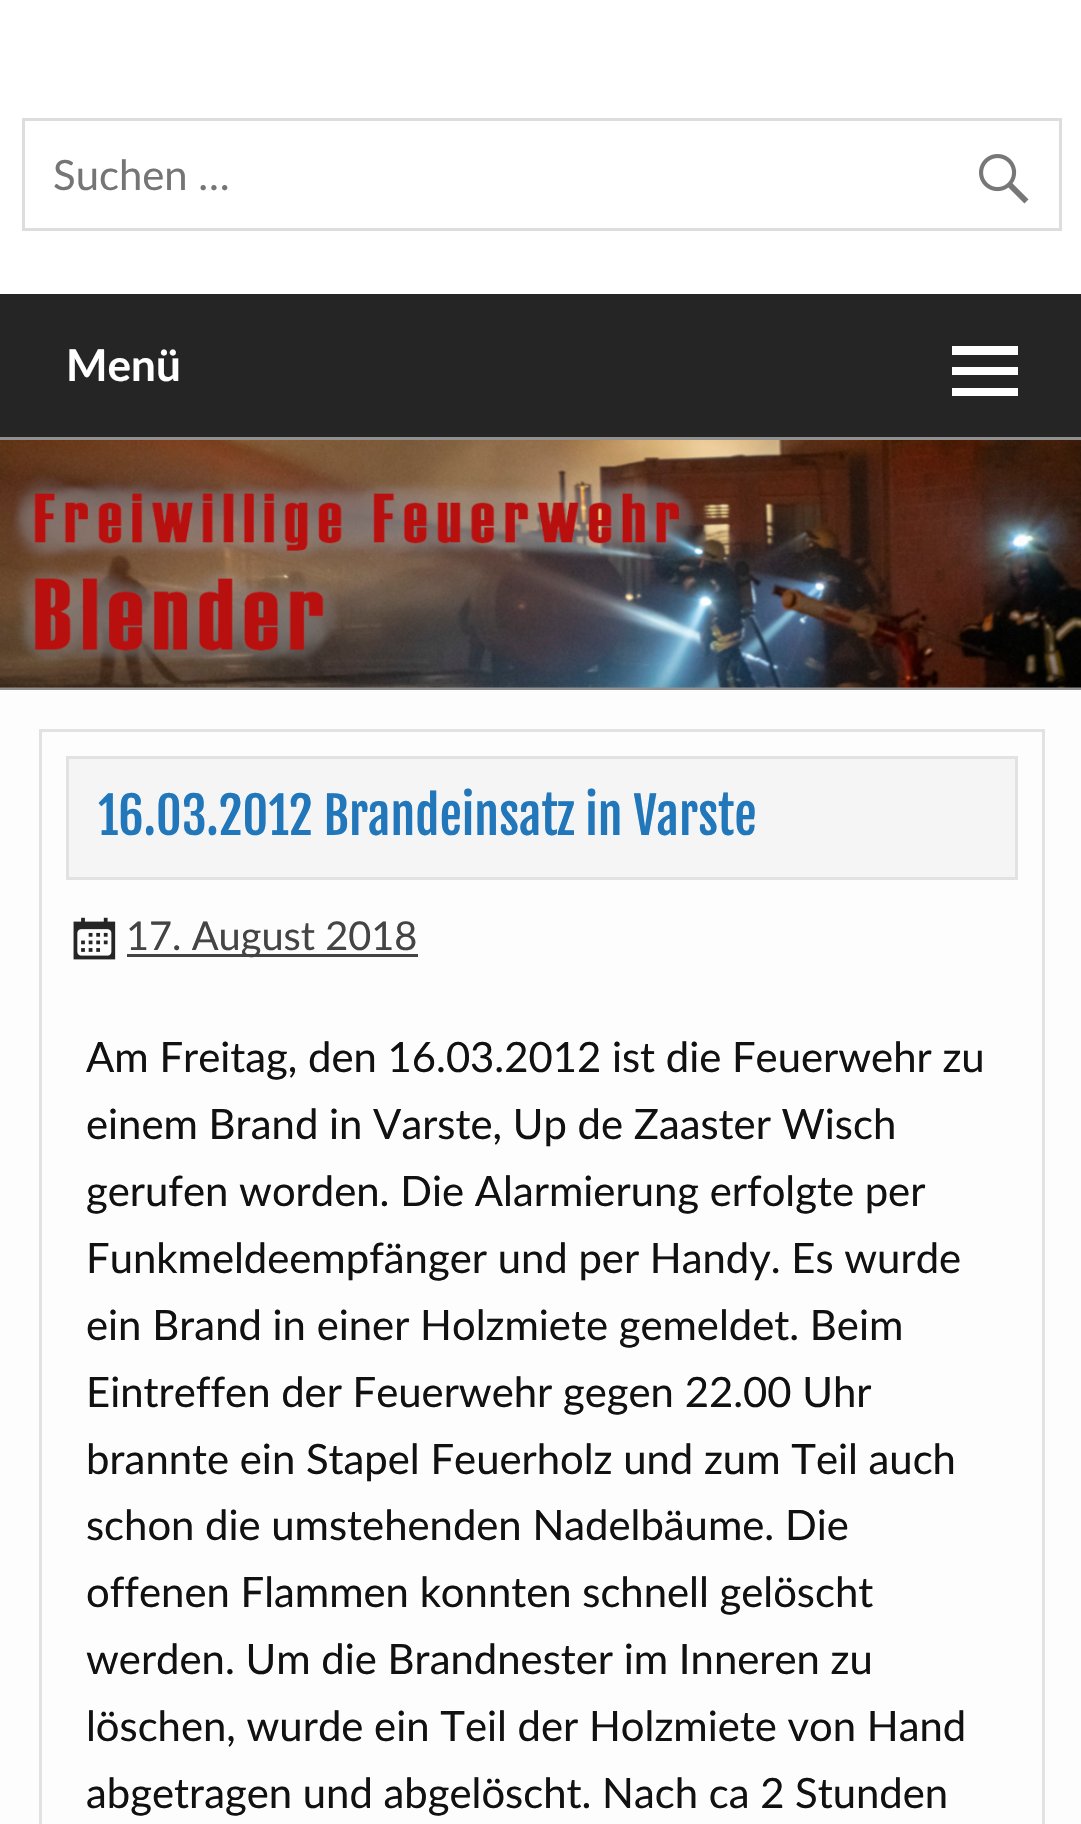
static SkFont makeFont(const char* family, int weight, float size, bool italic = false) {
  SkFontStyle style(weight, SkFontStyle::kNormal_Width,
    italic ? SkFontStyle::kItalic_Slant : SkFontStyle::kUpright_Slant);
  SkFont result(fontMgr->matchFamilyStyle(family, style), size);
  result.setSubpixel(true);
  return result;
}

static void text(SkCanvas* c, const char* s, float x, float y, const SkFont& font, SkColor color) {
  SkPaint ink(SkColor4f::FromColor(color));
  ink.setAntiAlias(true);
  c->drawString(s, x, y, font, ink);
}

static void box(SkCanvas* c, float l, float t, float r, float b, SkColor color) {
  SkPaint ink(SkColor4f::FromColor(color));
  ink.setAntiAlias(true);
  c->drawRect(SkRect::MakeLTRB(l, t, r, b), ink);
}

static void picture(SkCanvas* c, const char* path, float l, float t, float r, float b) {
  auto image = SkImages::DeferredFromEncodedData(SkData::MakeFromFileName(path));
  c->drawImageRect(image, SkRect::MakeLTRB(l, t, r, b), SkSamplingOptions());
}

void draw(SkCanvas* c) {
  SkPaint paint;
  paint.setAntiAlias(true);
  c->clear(0xff919191);
  box(c, 0, 0, 1081, 294, 0xffffffff);
  paint.setStyle(SkPaint::kStroke_Style);
  paint.setStrokeWidth(3);
  paint.setColor(0xffdddddd);
  c->drawRect(SkRect::MakeLTRB(23.5f, 119.5f, 1060.5f, 229.5f), paint);
  SkFont face1 = makeFont("Lato", 400, 41.8f);
  text(c, "Suchen …", 53, 190, face1, 0xff757575);
  picture(c, "img_01.png", 979, 154, 1029, 204);
  box(c, 0, 294, 1081, 437, 0xff252525);
  SkFont face2 = makeFont("Lato", 700, 44);
  text(c, "Menü", 66, 381, face2, 0xffffffff);
  paint.setStyle(SkPaint::kFill_Style);
  paint.setColor(0xffffffff);
  c->drawPath(SkPathBuilder().moveTo(952, 396).lineTo(952, 388).lineTo(1018, 388).lineTo(1018, 396).close().moveTo(952, 346).lineTo(1018, 346).lineTo(1018, 355).lineTo(952, 355).close().moveTo(952, 375).lineTo(952, 367).lineTo(1018, 367).lineTo(1018, 375).close().detach(), paint);
  picture(c, "img_02.png", 0, 440, 1081, 688);
  box(c, 0, 690, 1081, 1824, 0xfffdfdfd);
  paint.setStyle(SkPaint::kStroke_Style);
  paint.setColor(0xffe2e2e2);
  c->drawRect(SkRect::MakeLTRB(40.5f, 730.5f, 1043.5f, 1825.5f), paint);
  paint.setStyle(SkPaint::kFill_Style);
  paint.setColor(0xfff5f5f5);
  c->drawRect(SkRect::MakeLTRB(67.5f, 757.5f, 1016.5f, 878.5f), paint);
  paint.setStyle(SkPaint::kStroke_Style);
  paint.setColor(0xffe2e2e2);
  c->drawRect(SkRect::MakeLTRB(67.5f, 757.5f, 1016.5f, 878.5f), paint);
  SkFont face3 = makeFont("Fjalla One", 400, 50.2f);
  text(c, "16.03.2012 Brandeinsatz in Varste", 98, 835, face3, 0xff2277bb);
  picture(c, "img_03.png", 73, 917, 116, 960);
  box(c, 127, 954, 418, 957, 0xff444444);
  SkFont face4 = makeFont("Lato", 400, 39.75f);
  text(c, "17. August 2018", 126, 950, face4, 0xff444444);
  text(c, "Am Freitag, den 16.03.2012 ist die Feuerwehr zu", 86, 1072, face1, 0xff111111);
  text(c, "einem Brand in Varste, Up de Zaaster Wisch", 86, 1139, face1, 0xff111111);
  text(c, "gerufen worden. Die Alarmierung erfolgte per", 86, 1206, face1, 0xff111111);
  text(c, "Funkmeldeempfänger und per Handy. Es wurde", 86, 1273, face1, 0xff111111);
  text(c, "ein Brand in einer Holzmiete gemeldet. Beim", 86, 1340, face1, 0xff111111);
  text(c, "Eintreffen der Feuerwehr gegen 22.00 Uhr", 86, 1407, face1, 0xff111111);
  text(c, "brannte ein Stapel Feuerholz und zum Teil auch", 86, 1474, face1, 0xff111111);
  text(c, "schon die umstehenden Nadelbäume. Die", 86, 1540, face1, 0xff111111);
  text(c, "offenen Flammen konnten schnell gelöscht", 86, 1607, face1, 0xff111111);
  text(c, "werden. Um die Brandnester im Inneren zu", 86, 1674, face1, 0xff111111);
  text(c, "löschen, wurde ein Teil der Holzmiete von Hand", 86, 1741, face1, 0xff111111);
  text(c, "abgetragen und abgelöscht. Nach ca 2 Stunden", 86, 1808, face1, 0xff111111);
}
